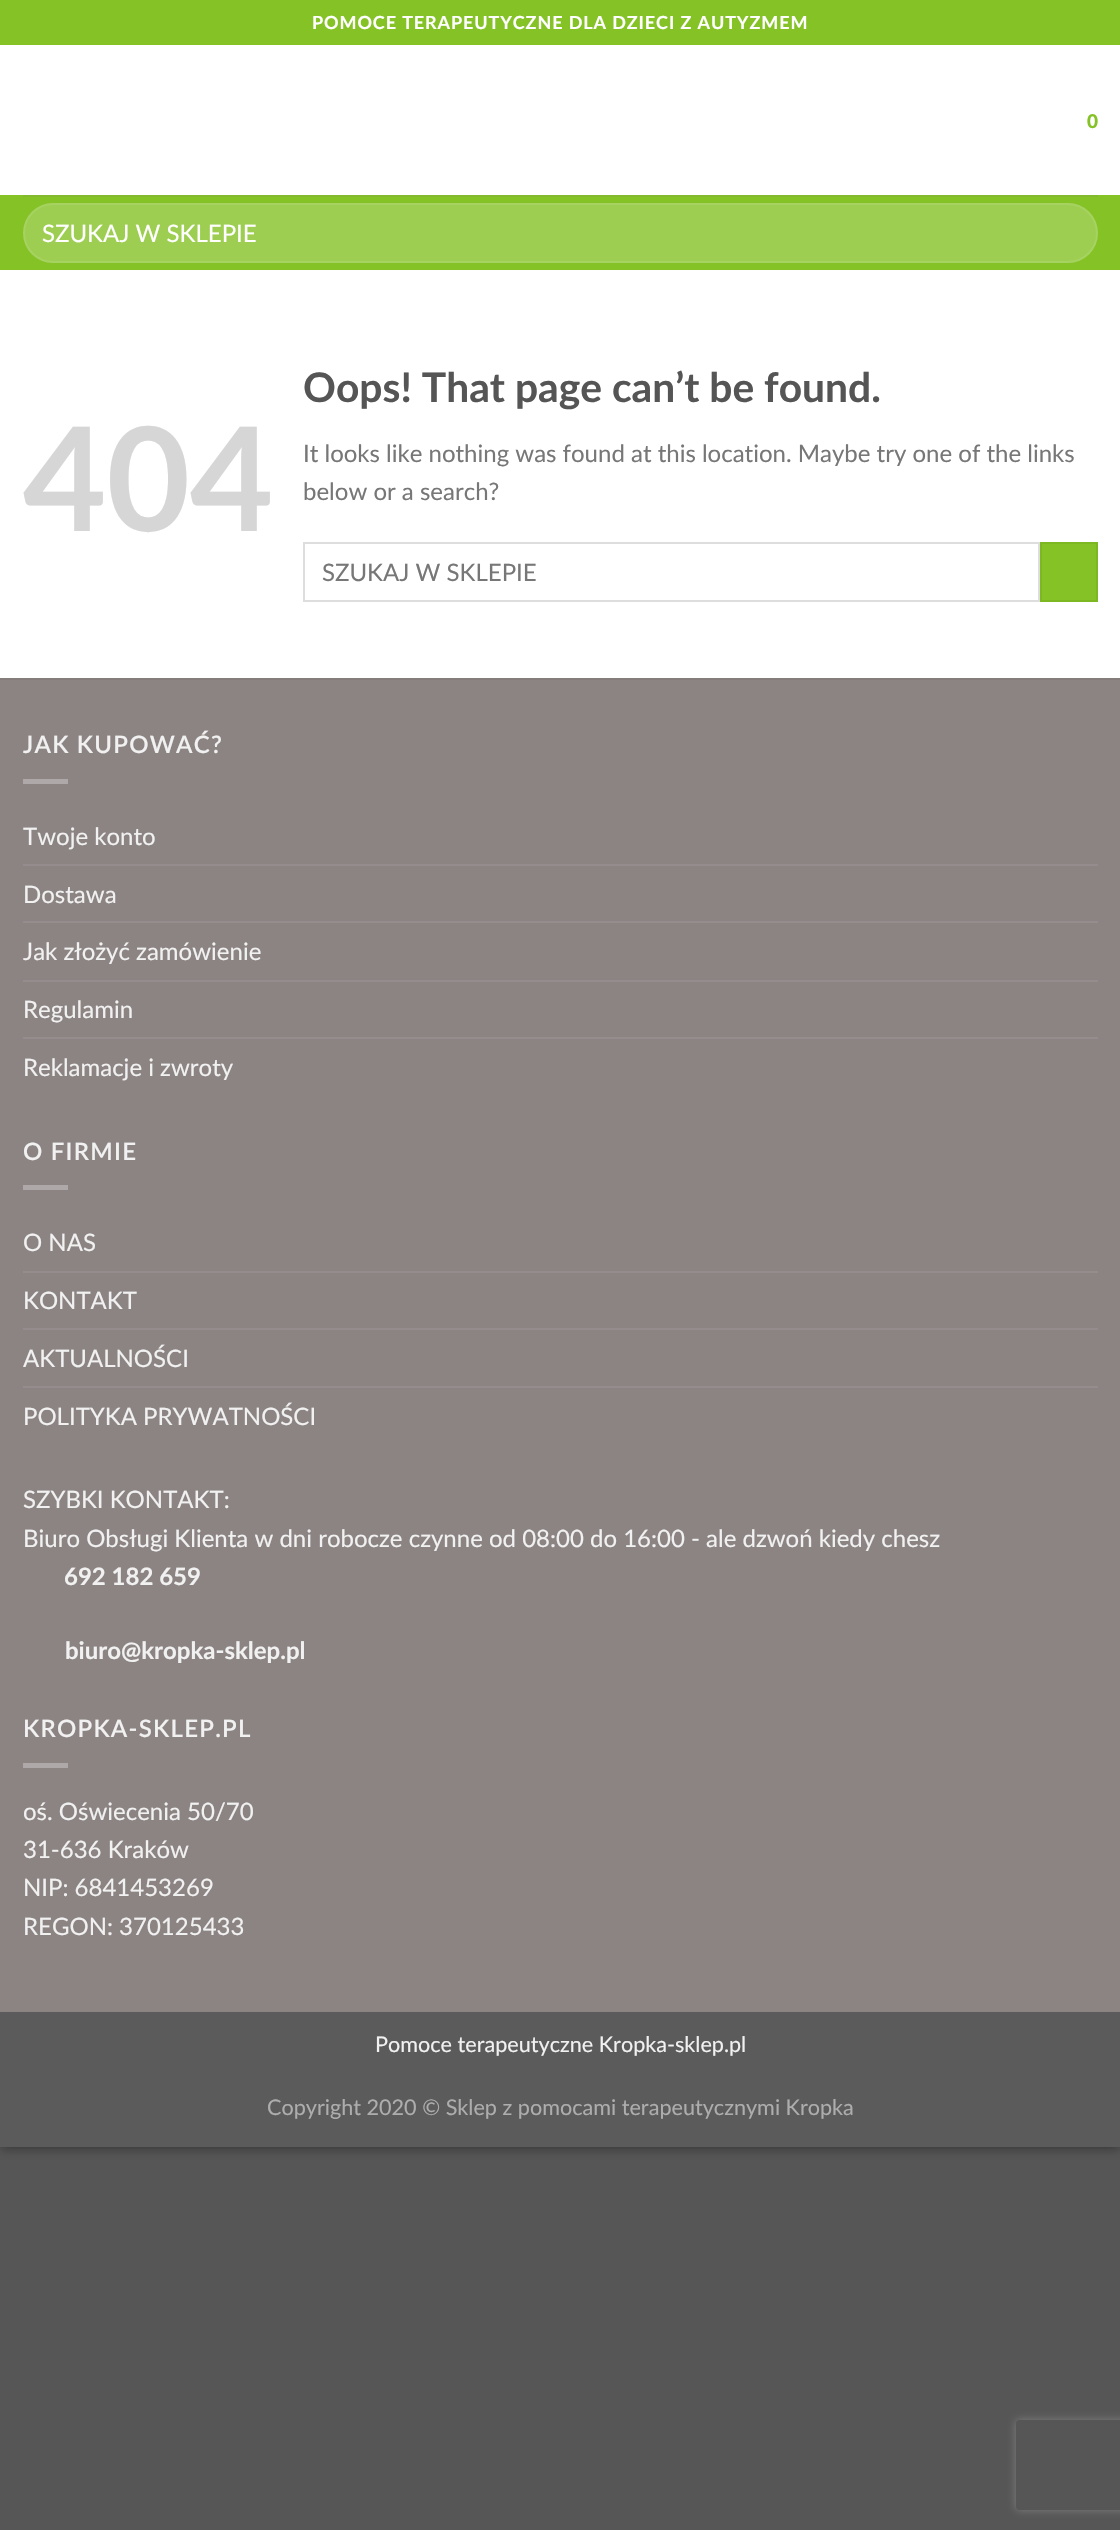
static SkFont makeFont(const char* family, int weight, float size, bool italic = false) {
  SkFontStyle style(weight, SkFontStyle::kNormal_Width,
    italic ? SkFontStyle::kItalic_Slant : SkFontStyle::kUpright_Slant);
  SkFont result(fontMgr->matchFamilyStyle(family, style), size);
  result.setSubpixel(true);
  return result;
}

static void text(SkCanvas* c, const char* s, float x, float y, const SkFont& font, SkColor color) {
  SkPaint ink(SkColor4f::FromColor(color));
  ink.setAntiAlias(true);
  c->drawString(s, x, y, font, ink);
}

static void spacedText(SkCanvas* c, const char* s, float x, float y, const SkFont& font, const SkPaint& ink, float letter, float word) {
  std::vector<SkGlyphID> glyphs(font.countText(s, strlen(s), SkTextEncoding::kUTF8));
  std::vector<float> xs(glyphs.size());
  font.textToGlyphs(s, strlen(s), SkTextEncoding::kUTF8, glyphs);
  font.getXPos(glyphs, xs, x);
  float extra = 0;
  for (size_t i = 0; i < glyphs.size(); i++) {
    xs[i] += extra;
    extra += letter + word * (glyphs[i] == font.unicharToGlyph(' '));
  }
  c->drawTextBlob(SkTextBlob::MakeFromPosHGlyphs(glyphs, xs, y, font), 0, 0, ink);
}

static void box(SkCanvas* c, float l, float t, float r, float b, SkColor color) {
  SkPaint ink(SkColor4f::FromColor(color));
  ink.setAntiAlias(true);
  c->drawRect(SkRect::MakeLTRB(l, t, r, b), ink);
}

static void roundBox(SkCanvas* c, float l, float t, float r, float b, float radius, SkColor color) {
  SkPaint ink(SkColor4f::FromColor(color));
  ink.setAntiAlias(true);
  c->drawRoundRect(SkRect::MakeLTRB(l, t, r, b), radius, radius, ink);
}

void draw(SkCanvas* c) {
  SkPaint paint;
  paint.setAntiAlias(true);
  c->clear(0xff565656);
  paint.setColor(0x3b000000);
  paint.setMaskFilter(SkMaskFilter::MakeBlur(kNormal_SkBlurStyle, 4.5f));
  c->drawRect(SkRect::MakeLTRB(0, 5, 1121, 2151), paint);
  paint.setMaskFilter(nullptr);
  paint.setColor(0x29000000);
  paint.setMaskFilter(SkMaskFilter::MakeBlur(kNormal_SkBlurStyle, 4.5f));
  c->drawRect(SkRect::MakeLTRB(6, 11, 1115, 2145), paint);
  paint.setMaskFilter(nullptr);
  box(c, 0, 45, 1120, 678, 0xffffffff);
  box(c, 0, 0, 1120, 45, 0xff84c225);
  SkFont face1 = makeFont("Lato", 700, 18);
  paint.setColor(0xffffffff);
  spacedText(c, "POMOCE TERAPEUTYCZNE DLA DZIECI Z AUTYZMEM", 312, 29, face1, paint, 0.9f, 0);
  SkFont face2 = makeFont("Lato", 900, 19);
  text(c, "0", 1087, 128, face2, 0xff84c225);
  box(c, 0, 195, 1120, 270, 0xff84c225);
  box(c, 23, 195, 1098, 197, 0xff83ba2d);
  roundBox(c, 23, 203, 1098, 263, 30, 0xff9dce51);
  paint.setStyle(SkPaint::kStroke_Style);
  paint.setStrokeWidth(2);
  paint.setColor(0x17ffffff);
  c->drawRoundRect(SkRect::MakeLTRB(24, 204, 1097, 262), 29, 29, paint);
  SkFont face3 = makeFont("Lato", 400, 24);
  text(c, "SZUKAJ W SKLEPIE", 42, 242, face3, 0xffffffff);
  SkFont face4 = makeFont("Lato", 700, 144);
  text(c, "404", 23, 531, face4, 0xffd6d6d6);
  SkFont face5 = makeFont("Lato", 700, 40.75f);
  text(c, "Oops! That page can’t be found.", 303, 402, face5, 0xff555555);
  text(c, "It looks like nothing was found at this location. Maybe try one of the links", 303, 462, face3, 0xff777777);
  text(c, "below or a search?", 303, 500, face3, 0xff777777);
  paint.setColor(0xffdddddd);
  c->drawRect(SkRect::MakeLTRB(304, 543, 1039, 601), paint);
  text(c, "SZUKAJ W SKLEPIE", 322, 581, face3, 0xff777777);
  paint.setStyle(SkPaint::kFill_Style);
  paint.setColor(0xff84c225);
  c->drawRect(SkRect::MakeLTRB(1041, 543, 1097, 601), paint);
  paint.setStyle(SkPaint::kStroke_Style);
  paint.setColor(0xff7db823);
  c->drawRect(SkRect::MakeLTRB(1041, 543, 1097, 601), paint);
  box(c, 0, 680, 1120, 2012, 0xff8c8383);
  box(c, 0, 678, 1120, 680, 0xff857c7c);
  SkFont face6 = makeFont("Lato", 600, 24);
  paint.setStyle(SkPaint::kFill_Style);
  paint.setColor(0xfff1f1f1);
  spacedText(c, "JAK KUPOWAĆ?", 23, 753, face6, paint, 1.25f, 0);
  box(c, 23, 779, 68, 784, 0xffafa8a8);
  text(c, "Twoje konto", 23, 845, face3, 0xfff1f1f1);
  box(c, 23, 864, 1098, 866, 0xff958d8d);
  text(c, "Dostawa", 23, 903, face3, 0xfff1f1f1);
  box(c, 23, 921, 1098, 923, 0xff958d8d);
  text(c, "Jak złożyć zamówienie", 23, 960, face3, 0xfff1f1f1);
  box(c, 23, 980, 1098, 982, 0xff958d8d);
  text(c, "Regulamin", 23, 1018, face3, 0xfff1f1f1);
  box(c, 23, 1037, 1098, 1039, 0xff958d8d);
  text(c, "Reklamacje i zwroty", 23, 1076, face3, 0xfff1f1f1);
  spacedText(c, "O FIRMIE", 23, 1160, face6, paint, 1.25f, 0);
  box(c, 23, 1185, 68, 1190, 0xffafa8a8);
  text(c, "O NAS", 23, 1251, face3, 0xfff1f1f1);
  box(c, 23, 1271, 1098, 1273, 0xff958d8d);
  text(c, "KONTAKT", 23, 1309, face3, 0xfff1f1f1);
  box(c, 23, 1328, 1098, 1330, 0xff958d8d);
  text(c, "AKTUALNOŚCI", 23, 1367, face3, 0xfff1f1f1);
  box(c, 23, 1386, 1098, 1388, 0xff958d8d);
  text(c, "POLITYKA PRYWATNOŚCI", 23, 1425, face3, 0xfff1f1f1);
  text(c, "SZYBKI KONTAKT:", 23, 1508, face3, 0xfff1f1f1);
  text(c, "Biuro Obsługi Klienta w dni robocze czynne od 08:00 do 16:00 - ale dzwoń kiedy chesz", 23, 1547, face3, 0xfff1f1f1);
  SkFont face7 = makeFont("Lato", 700, 24);
  text(c, "692 182 659", 64, 1585, face7, 0xfff1f1f1);
  text(c, "biuro@kropka-sklep.pl", 65, 1659, face7, 0xfff1f1f1);
  spacedText(c, "KROPKA-SKLEP.PL", 23, 1737, face6, paint, 1.25f, 0);
  box(c, 23, 1763, 68, 1768, 0xffafa8a8);
  text(c, "oś. Oświecenia 50/70", 23, 1820, face3, 0xfff1f1f1);
  text(c, "31-636 Kraków", 23, 1858, face3, 0xfff1f1f1);
  text(c, "NIP: 6841453269", 23, 1896, face3, 0xfff1f1f1);
  text(c, "REGON: 370125433", 23, 1935, face3, 0xfff1f1f1);
  box(c, 0, 2012, 1120, 2147, 0xff5b5b5b);
  SkFont face8 = makeFont("Lato", 400, 21.6f);
  text(c, "Pomoce terapeutyczne Kropka-sklep.pl", 375, 2052, face8, 0xfff1f1f1);
  text(c, "Copyright 2020 © Sklep z pomocami terapeutycznymi Kropka", 267, 2115, face8, 0xffadadad);
  c->save();
  c->clipPath(SkPathBuilder(SkPathFillType::kEvenOdd).moveTo(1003, 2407).lineTo(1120, 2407).lineTo(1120, 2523).lineTo(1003, 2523).close().moveTo(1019, 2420).lineTo(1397, 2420).cubicTo(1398.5f, 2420, 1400, 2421.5f, 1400, 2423).lineTo(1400, 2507).cubicTo(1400, 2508.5f, 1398.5f, 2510, 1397, 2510).lineTo(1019, 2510).cubicTo(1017.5f, 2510, 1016, 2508.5f, 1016, 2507).lineTo(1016, 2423).cubicTo(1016, 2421.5f, 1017.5f, 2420, 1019, 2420).close().detach(), true);
  paint.setColor(0xff808080);
  paint.setMaskFilter(SkMaskFilter::MakeBlur(kNormal_SkBlurStyle, 4));
  c->drawRoundRect(SkRect::MakeLTRB(1016, 2420, 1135, 2510), 3, 3, paint);
  paint.setMaskFilter(nullptr);
  c->restore();
}
